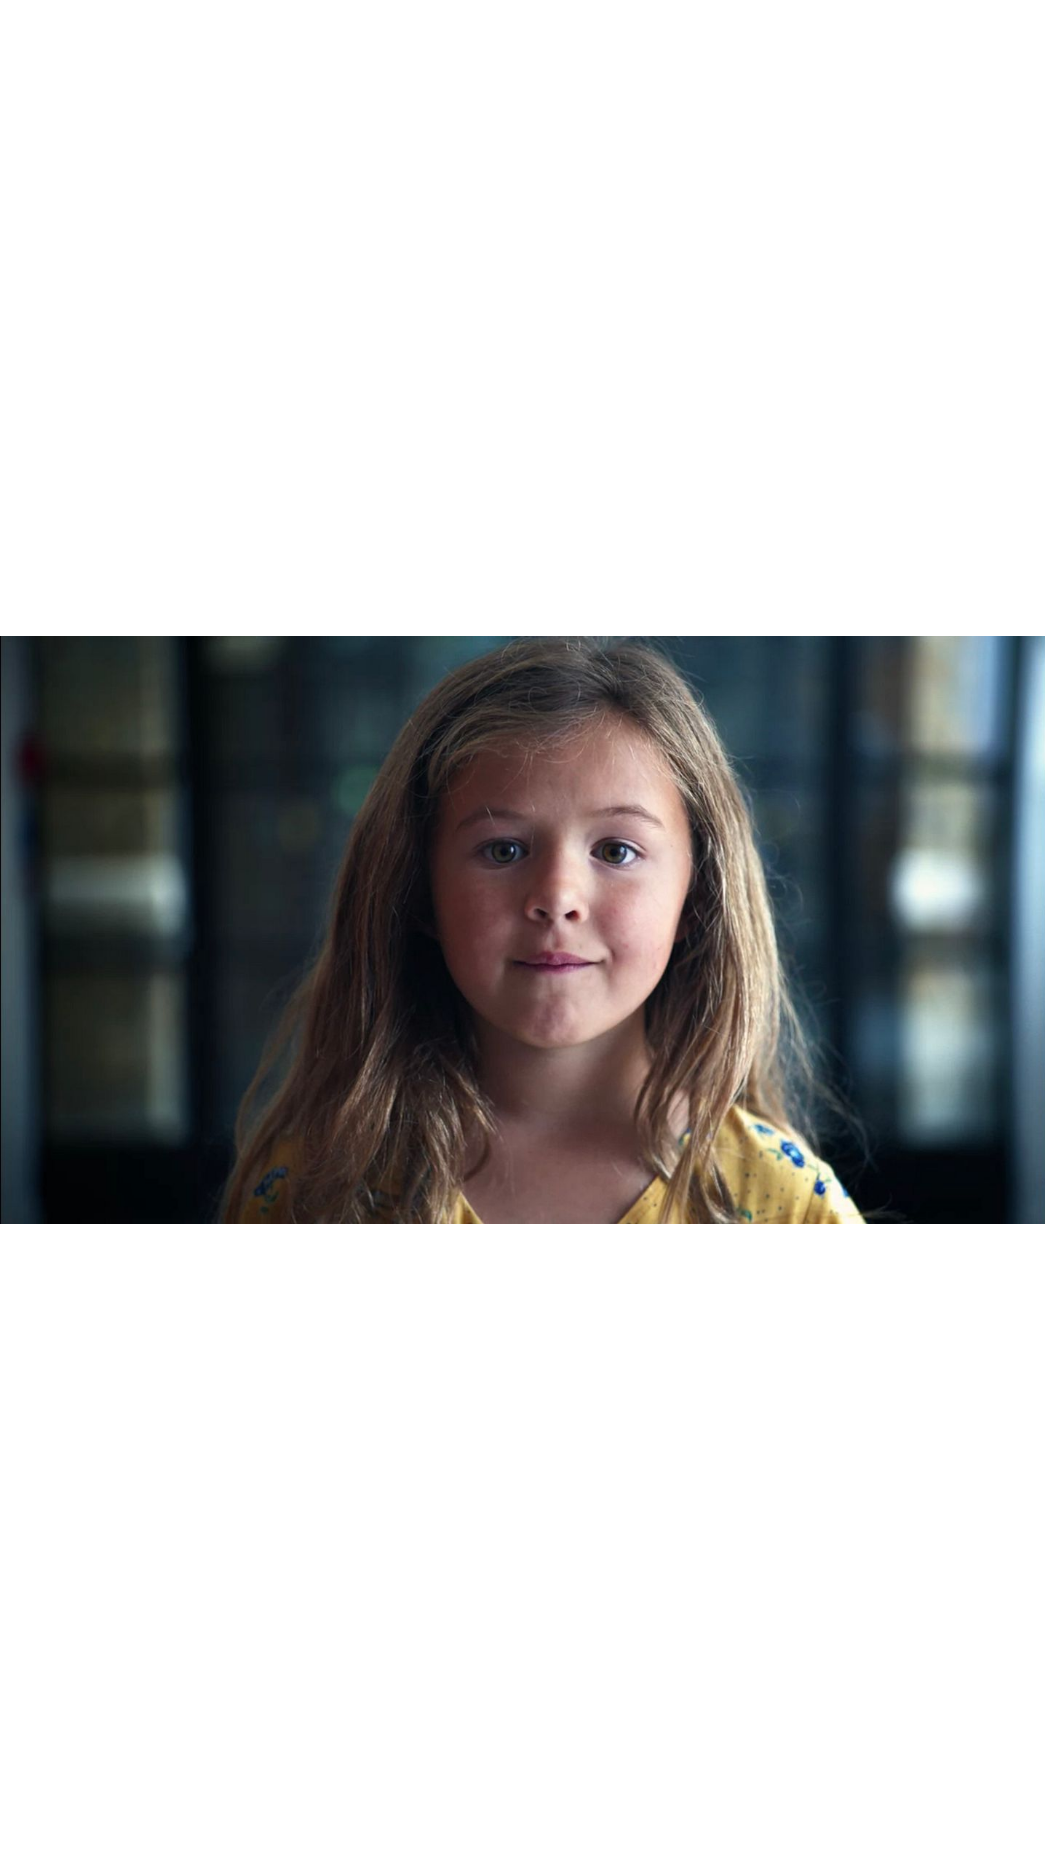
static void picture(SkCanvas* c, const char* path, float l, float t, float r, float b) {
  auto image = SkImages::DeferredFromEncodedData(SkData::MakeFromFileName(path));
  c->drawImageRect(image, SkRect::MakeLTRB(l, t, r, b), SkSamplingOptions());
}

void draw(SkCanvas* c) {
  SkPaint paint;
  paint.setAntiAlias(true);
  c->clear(0xffffffff);
  picture(c, "img_01.png", 0, 636, 1045, 1224);
}
